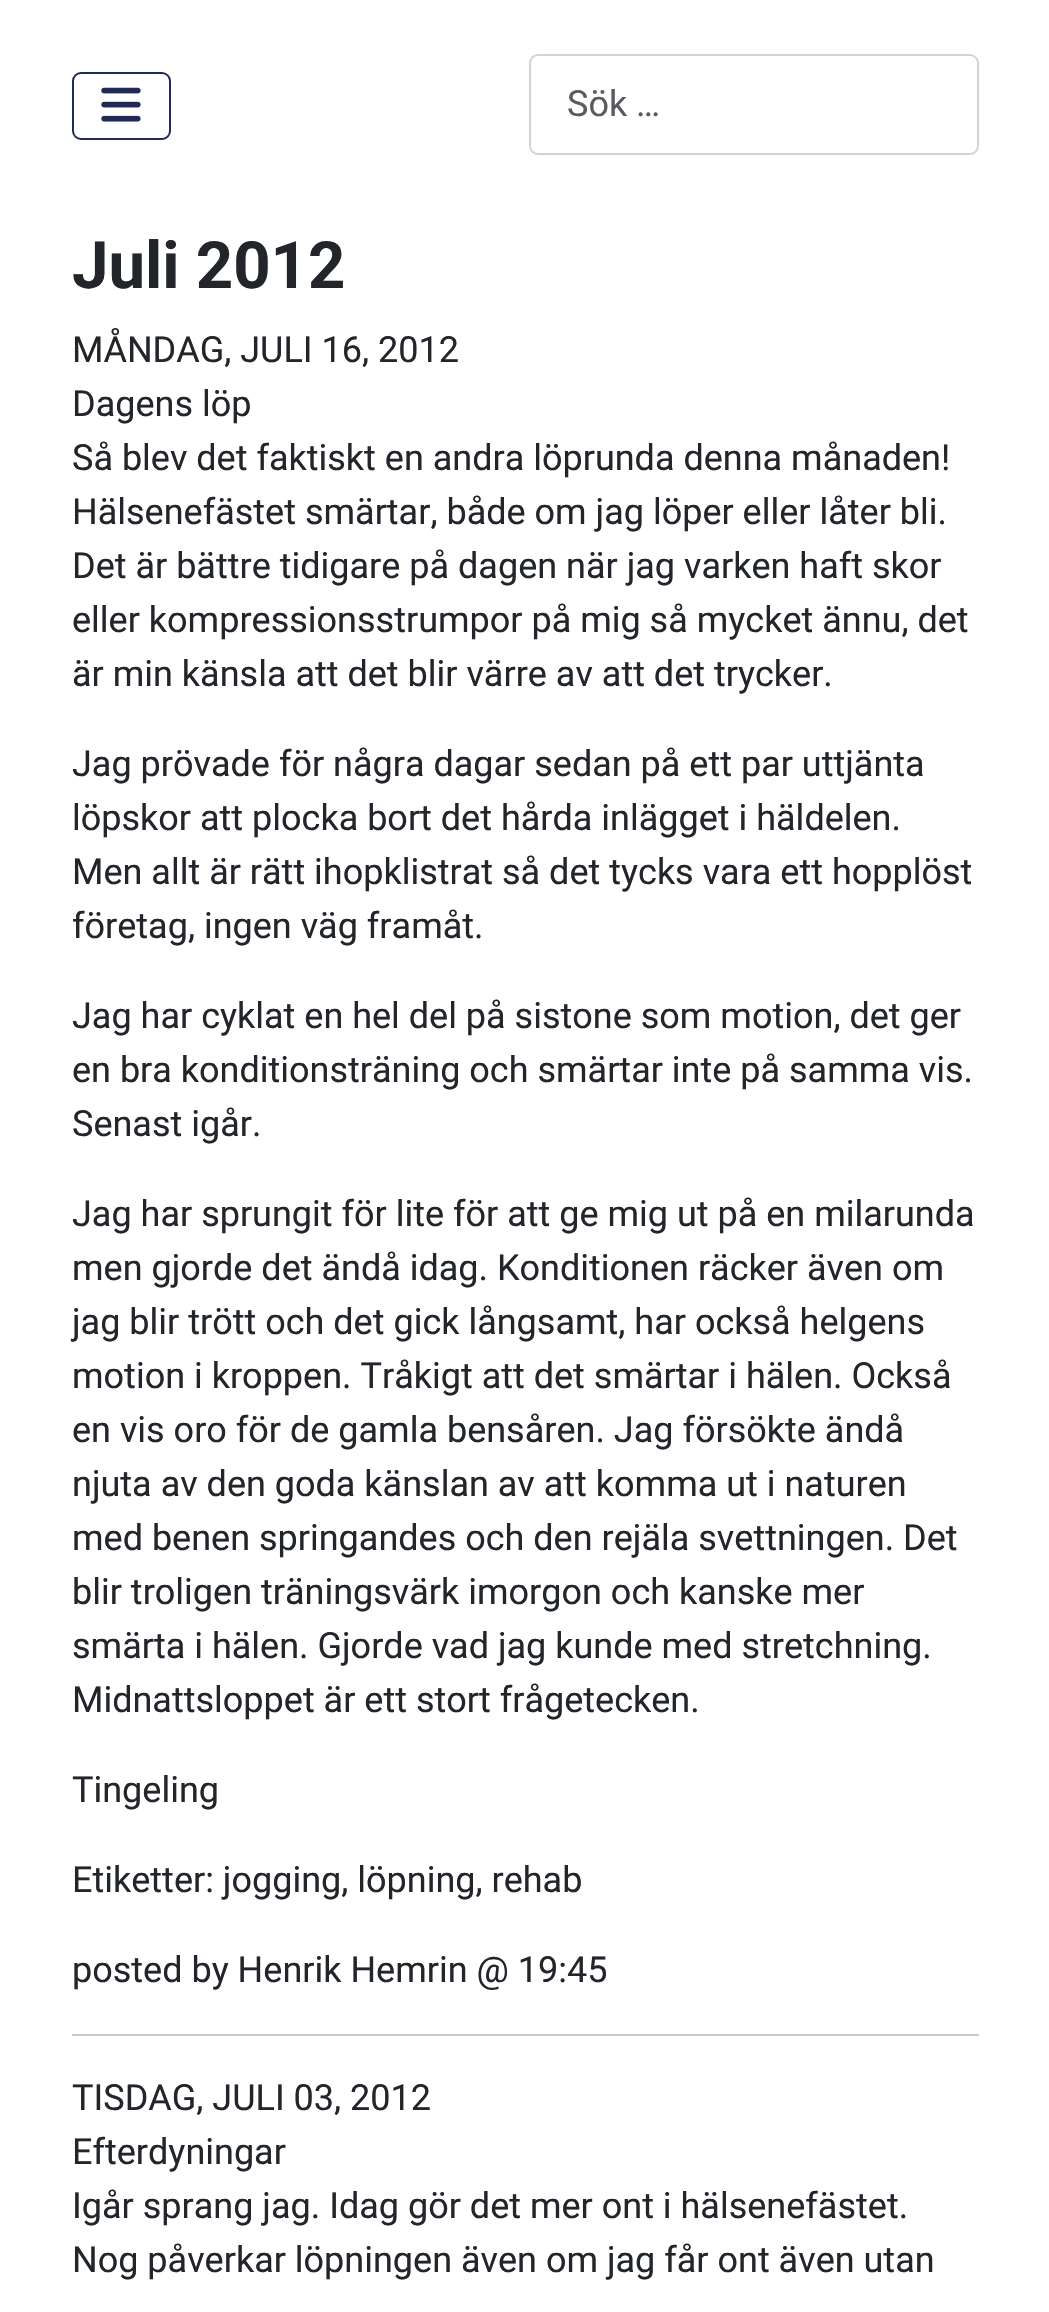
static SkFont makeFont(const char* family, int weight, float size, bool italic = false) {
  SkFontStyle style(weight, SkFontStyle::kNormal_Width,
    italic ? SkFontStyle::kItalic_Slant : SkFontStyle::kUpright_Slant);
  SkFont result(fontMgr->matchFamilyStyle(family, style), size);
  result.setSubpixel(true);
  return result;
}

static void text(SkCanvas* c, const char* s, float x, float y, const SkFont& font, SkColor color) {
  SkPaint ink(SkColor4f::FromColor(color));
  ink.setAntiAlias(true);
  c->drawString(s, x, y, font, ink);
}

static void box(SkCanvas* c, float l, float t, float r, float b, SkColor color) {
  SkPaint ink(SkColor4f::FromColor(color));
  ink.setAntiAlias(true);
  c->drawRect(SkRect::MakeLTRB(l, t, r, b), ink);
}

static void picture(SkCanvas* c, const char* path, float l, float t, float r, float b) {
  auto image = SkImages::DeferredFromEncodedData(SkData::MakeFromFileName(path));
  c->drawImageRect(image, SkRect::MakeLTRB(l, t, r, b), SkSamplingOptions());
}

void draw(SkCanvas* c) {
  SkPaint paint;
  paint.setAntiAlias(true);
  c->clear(0xffffffff);
  paint.setStyle(SkPaint::kStroke_Style);
  paint.setStrokeWidth(2);
  paint.setColor(0xff202a54);
  c->drawRoundRect(SkRect::MakeLTRB(73, 73, 170, 139), 8, 8, paint);
  picture(c, "img_01.png", 101, 87, 141, 122);
  paint.setColor(0xffced4da);
  c->drawRoundRect(SkRect::MakeLTRB(530, 55, 978, 154), 8, 8, paint);
  SkFont face1 = makeFont("Roboto", 400, 36);
  text(c, "Sök …", 567, 116, face1, 0xff595c5f);
  SkFont face2 = makeFont("Roboto", 700, 65.25f);
  text(c, "Juli 2012", 72, 288, face2, 0xff22262a);
  text(c, "MÅNDAG, JULI 16, 2012", 72, 362, face1, 0xff22262a);
  text(c, "Dagens löp", 72, 416, face1, 0xff22262a);
  text(c, "Så blev det faktiskt en andra löprunda denna månaden!", 72, 470, face1, 0xff22262a);
  text(c, "Hälsenefästet smärtar, både om jag löper eller låter bli.", 72, 524, face1, 0xff22262a);
  text(c, "Det är bättre tidigare på dagen när jag varken haft skor", 72, 578, face1, 0xff22262a);
  text(c, "eller kompressionsstrumpor på mig så mycket ännu, det", 72, 632, face1, 0xff22262a);
  text(c, "är min känsla att det blir värre av att det trycker.", 72, 686, face1, 0xff22262a);
  text(c, "Jag prövade för några dagar sedan på ett par uttjänta", 72, 776, face1, 0xff22262a);
  text(c, "löpskor att plocka bort det hårda inlägget i häldelen.", 72, 830, face1, 0xff22262a);
  text(c, "Men allt är rätt ihopklistrat så det tycks vara ett hopplöst", 72, 884, face1, 0xff22262a);
  text(c, "företag, ingen väg framåt.", 72, 938, face1, 0xff22262a);
  text(c, "Jag har cyklat en hel del på sistone som motion, det ger", 72, 1028, face1, 0xff22262a);
  text(c, "en bra konditionsträning och smärtar inte på samma vis.", 72, 1082, face1, 0xff22262a);
  text(c, "Senast igår.", 72, 1136, face1, 0xff22262a);
  text(c, "Jag har sprungit för lite för att ge mig ut på en milarunda", 72, 1226, face1, 0xff22262a);
  text(c, "men gjorde det ändå idag. Konditionen räcker även om", 72, 1280, face1, 0xff22262a);
  text(c, "jag blir trött och det gick långsamt, har också helgens", 72, 1334, face1, 0xff22262a);
  text(c, "motion i kroppen. Tråkigt att det smärtar i hälen. Också", 72, 1388, face1, 0xff22262a);
  text(c, "en vis oro för de gamla bensåren. Jag försökte ändå", 72, 1442, face1, 0xff22262a);
  text(c, "njuta av den goda känslan av att komma ut i naturen", 72, 1496, face1, 0xff22262a);
  text(c, "med benen springandes och den rejäla svettningen. Det", 72, 1550, face1, 0xff22262a);
  text(c, "blir troligen träningsvärk imorgon och kanske mer", 72, 1604, face1, 0xff22262a);
  text(c, "smärta i hälen. Gjorde vad jag kunde med stretchning.", 72, 1658, face1, 0xff22262a);
  text(c, "Midnattsloppet är ett stort frågetecken.", 72, 1712, face1, 0xff22262a);
  text(c, "Tingeling", 72, 1802, face1, 0xff22262a);
  text(c, "Etiketter: jogging, löpning, rehab", 72, 1892, face1, 0xff22262a);
  text(c, "posted by Henrik Hemrin @ 19:45", 72, 1982, face1, 0xff22262a);
  box(c, 72, 2034, 979, 2036, 0xffc8c9ca);
  text(c, "TISDAG, JULI 03, 2012", 72, 2110, face1, 0xff22262a);
  text(c, "Efterdyningar", 72, 2164, face1, 0xff22262a);
  text(c, "Igår sprang jag. Idag gör det mer ont i hälsenefästet.", 72, 2218, face1, 0xff22262a);
  text(c, "Nog påverkar löpningen även om jag får ont även utan", 72, 2272, face1, 0xff22262a);
}
